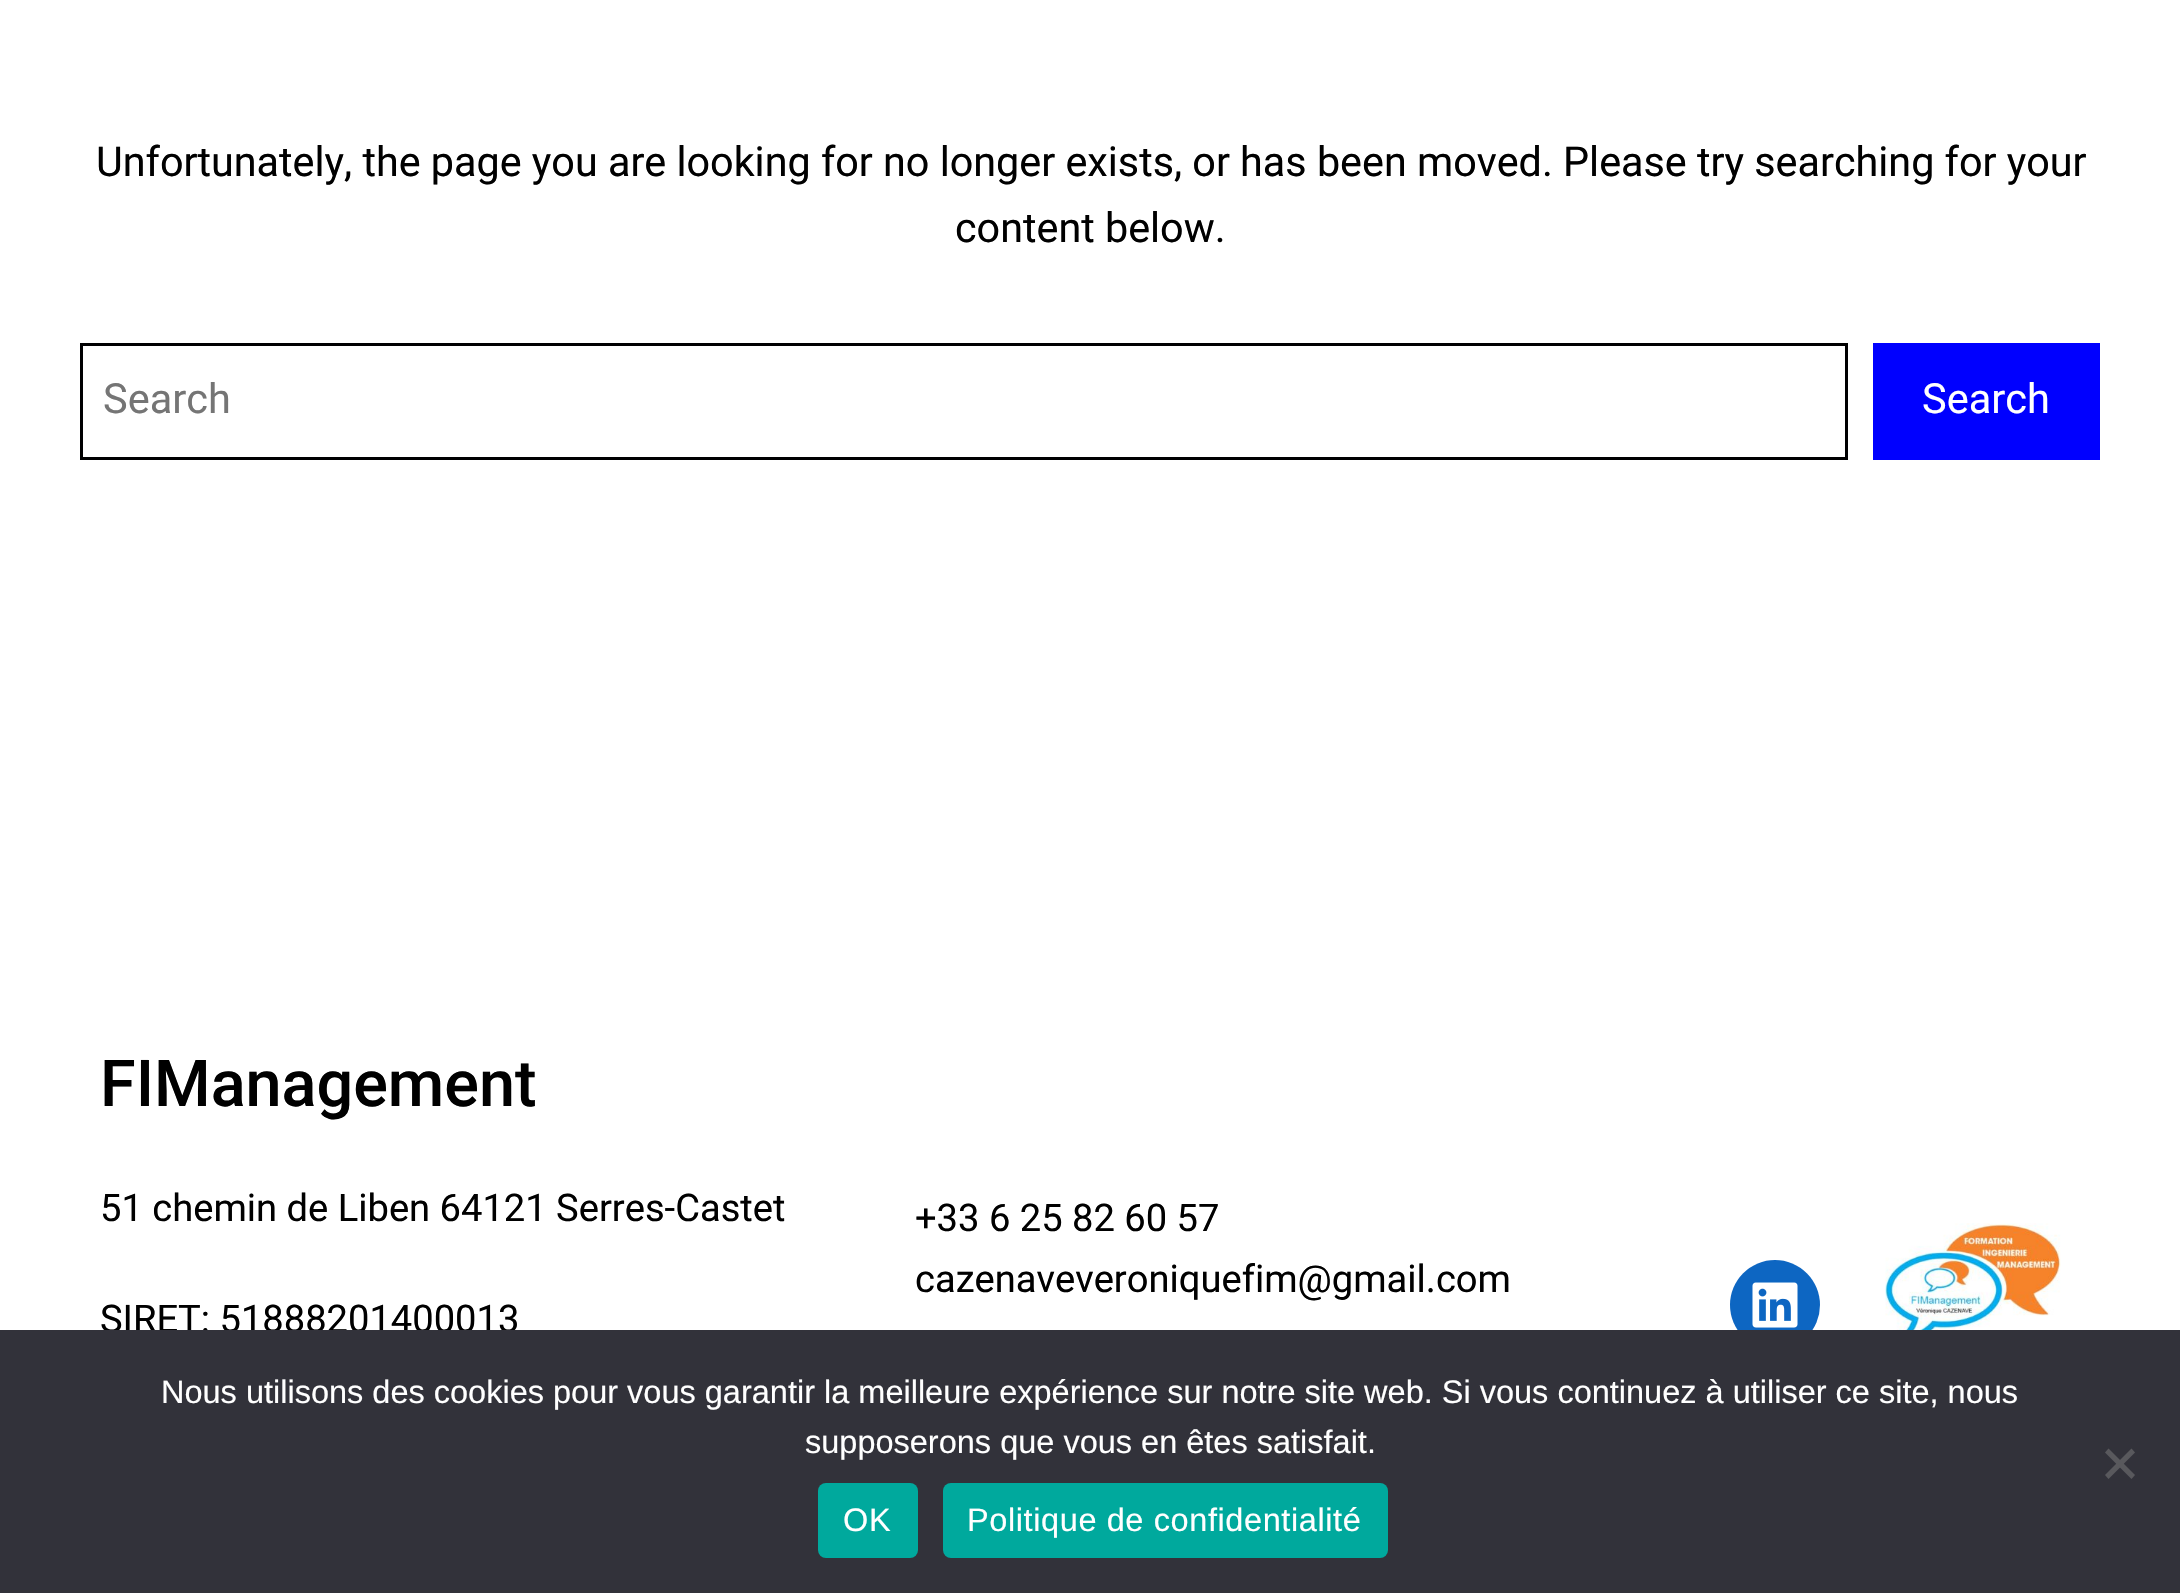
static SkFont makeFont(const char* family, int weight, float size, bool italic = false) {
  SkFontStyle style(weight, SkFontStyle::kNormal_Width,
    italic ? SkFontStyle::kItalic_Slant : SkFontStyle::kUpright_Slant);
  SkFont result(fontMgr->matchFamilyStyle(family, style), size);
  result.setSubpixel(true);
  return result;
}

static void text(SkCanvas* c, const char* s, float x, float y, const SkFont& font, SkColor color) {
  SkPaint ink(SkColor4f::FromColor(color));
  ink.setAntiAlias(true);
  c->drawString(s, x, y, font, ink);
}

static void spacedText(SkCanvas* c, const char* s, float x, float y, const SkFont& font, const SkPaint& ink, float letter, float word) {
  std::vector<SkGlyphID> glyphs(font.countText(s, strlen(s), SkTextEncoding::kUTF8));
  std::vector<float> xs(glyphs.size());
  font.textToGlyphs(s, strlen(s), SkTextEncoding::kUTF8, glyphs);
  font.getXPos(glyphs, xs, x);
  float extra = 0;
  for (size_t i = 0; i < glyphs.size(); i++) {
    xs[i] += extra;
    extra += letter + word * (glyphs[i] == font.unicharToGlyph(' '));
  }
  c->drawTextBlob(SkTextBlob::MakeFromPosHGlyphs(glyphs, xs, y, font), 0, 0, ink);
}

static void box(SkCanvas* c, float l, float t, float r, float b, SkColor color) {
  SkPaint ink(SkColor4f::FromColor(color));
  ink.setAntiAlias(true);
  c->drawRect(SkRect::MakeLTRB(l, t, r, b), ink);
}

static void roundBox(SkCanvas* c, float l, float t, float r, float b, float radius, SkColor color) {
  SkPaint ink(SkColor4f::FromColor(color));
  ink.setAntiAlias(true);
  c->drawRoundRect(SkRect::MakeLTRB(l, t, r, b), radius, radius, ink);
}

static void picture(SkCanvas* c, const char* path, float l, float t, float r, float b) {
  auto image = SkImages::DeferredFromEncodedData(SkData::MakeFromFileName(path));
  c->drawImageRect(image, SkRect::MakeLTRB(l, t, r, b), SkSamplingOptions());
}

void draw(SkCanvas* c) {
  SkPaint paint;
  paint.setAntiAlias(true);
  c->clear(0xffffffff);
  SkFont face1 = makeFont("Roboto", 400, 41.3f);
  text(c, "Unfortunately, the page you are looking for no longer exists, or has been moved. Please try searching for your", 96, 176, face1, 0xff000000);
  text(c, "content below.", 955, 242, face1, 0xff000000);
  paint.setStyle(SkPaint::kStroke_Style);
  paint.setStrokeWidth(3);
  paint.setColor(0xff000001);
  c->drawRect(SkRect::MakeLTRB(81.5f, 344.5f, 1846.5f, 458.5f), paint);
  SkFont face2 = makeFont("Roboto", 400, 41.5f);
  text(c, "Search", 103, 413, face2, 0xff757575);
  box(c, 1873, 343, 2100, 460, 0xff0000ff);
  text(c, "Search", 1922, 413, face2, 0xffffffff);
  SkFont face3 = makeFont("Roboto", 500, 64.75f);
  text(c, "FIManagement", 100, 1106, face3, 0xff000000);
  SkFont face4 = makeFont("Roboto", 400, 38.1f);
  text(c, "51 chemin de Liben 64121 Serres-Castet", 100, 1221, face4, 0xff000000);
  text(c, "SIRET: 51888201400013", 100, 1332, face4, 0xff000000);
  text(c, "+33 6 25 82 60 57", 915, 1231, face4, 0xff000000);
  text(c, "cazenaveveroniquefim@gmail.com", 915, 1292, face4, 0xff000000);
  paint.setStyle(SkPaint::kFill_Style);
  paint.setColor(0xff0d66c2);
  c->drawCircle(1775, 1305, 45, paint);
  picture(c, "img_01.png", 1752, 1282, 1798, 1328);
  picture(c, "img_02.png", 1885, 1223, 2061, 1330);
  box(c, 0, 1330, 2180, 1593, 0xff32323a);
  SkFont face5 = makeFont("Liberation Sans", 400, 32.5f);
  text(c, "Nous utilisons des cookies pour vous garantir la meilleure expérience sur notre site web. Si vous continuez à utiliser ce site, nous", 161, 1403, face5, 0xffffffff);
  text(c, "supposerons que vous en êtes satisfait.", 805, 1453, face5, 0xffffffff);
  paint.setColor(0xff59595d);
  c->drawPath(SkPathBuilder().moveTo(2131.5f, 1448.5f).lineTo(2135, 1452.5f).lineTo(2108.5f, 1479).lineTo(2105, 1475).close().detach(), paint);
  c->drawPath(SkPathBuilder().moveTo(2105, 1452.5f).lineTo(2108.5f, 1448.5f).lineTo(2135, 1475).lineTo(2131.5f, 1479).close().detach(), paint);
  roundBox(c, 818, 1483, 918, 1558, 8, 0xff00a99d);
  paint.setColor(0xffffffff);
  spacedText(c, "OK", 843, 1531, face5, paint, 0.6f, 0);
  roundBox(c, 943, 1483, 1388, 1558, 8, 0xff00a99d);
  spacedText(c, "Politique de confidentialité", 967, 1531, face5, paint, 0.6f, 0);
}
